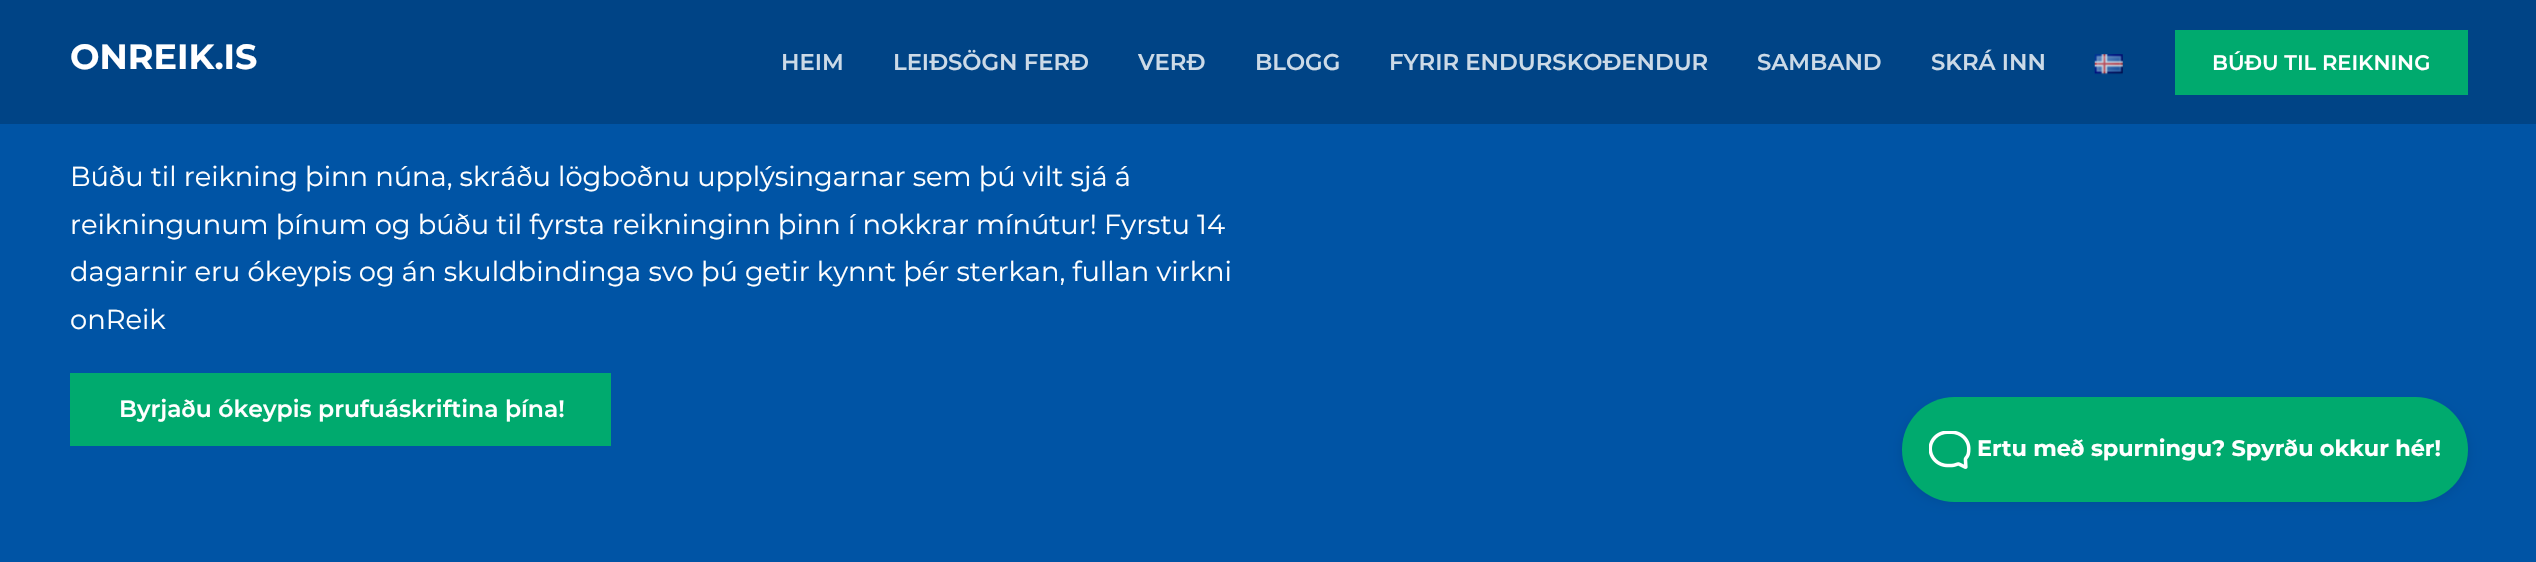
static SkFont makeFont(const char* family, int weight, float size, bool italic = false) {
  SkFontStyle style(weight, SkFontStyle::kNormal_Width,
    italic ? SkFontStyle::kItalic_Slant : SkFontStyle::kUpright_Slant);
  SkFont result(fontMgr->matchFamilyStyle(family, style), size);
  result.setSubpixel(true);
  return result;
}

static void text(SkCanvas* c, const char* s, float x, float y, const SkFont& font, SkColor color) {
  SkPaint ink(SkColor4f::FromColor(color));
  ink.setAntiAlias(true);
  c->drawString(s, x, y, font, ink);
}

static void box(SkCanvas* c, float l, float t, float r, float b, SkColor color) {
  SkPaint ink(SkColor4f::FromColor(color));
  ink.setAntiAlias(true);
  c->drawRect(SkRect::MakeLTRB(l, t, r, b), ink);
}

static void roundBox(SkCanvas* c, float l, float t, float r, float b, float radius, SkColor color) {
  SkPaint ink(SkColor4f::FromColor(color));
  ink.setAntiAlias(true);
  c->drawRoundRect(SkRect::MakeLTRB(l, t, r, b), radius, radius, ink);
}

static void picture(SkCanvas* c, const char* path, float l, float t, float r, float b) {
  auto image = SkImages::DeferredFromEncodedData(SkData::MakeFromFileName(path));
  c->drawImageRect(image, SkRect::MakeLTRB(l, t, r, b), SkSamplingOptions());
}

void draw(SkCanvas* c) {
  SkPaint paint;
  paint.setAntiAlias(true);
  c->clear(0xff0054a5);
  box(c, 0, 0, 2536, 124, 0xff004486);
  SkFont face1 = makeFont("Montserrat", 700, 35);
  text(c, "ONREIK.IS", 70, 69, face1, 0xffffffff);
  SkFont face2 = makeFont("Montserrat", 600, 22.75f);
  text(c, "HEIM", 781, 70, face2, 0xffccdae7);
  text(c, "LEIÐSÖGN FERÐ", 893, 70, face2, 0xffccdae7);
  text(c, "VERÐ", 1138, 70, face2, 0xffccdae7);
  text(c, "BLOGG", 1255, 70, face2, 0xffccdae7);
  text(c, "FYRIR ENDURSKOÐENDUR", 1389, 70, face2, 0xffccdae7);
  text(c, "SAMBAND", 1757, 70, face2, 0xffccdae7);
  text(c, "SKRÁ INN", 1931, 70, face2, 0xffccdae7);
  picture(c, "img_01.png", 2094, 54, 2123, 75);
  box(c, 2175, 30, 2468, 95, 0xff00aa6e);
  SkFont face3 = makeFont("Montserrat", 600, 21);
  text(c, "BÚÐU TIL REIKNING", 2212, 70, face3, 0xffffffff);
  SkFont face4 = makeFont("Montserrat", 400, 27.35f);
  text(c, "Búðu til reikning þinn núna, skráðu lögboðnu upplýsingarnar sem þú vilt sjá á", 70, 186, face4, 0xffffffff);
  text(c, "reikningunum þínum og búðu til fyrsta reikninginn þinn í nokkrar mínútur! Fyrstu 14", 70, 234, face4, 0xffffffff);
  text(c, "dagarnir eru ókeypis og án skuldbindinga svo þú getir kynnt þér sterkan, fullan virkni", 70, 281, face4, 0xffffffff);
  text(c, "onReik", 70, 329, face4, 0xffffffff);
  box(c, 70, 373, 611, 446, 0xff00aa6e);
  SkFont face5 = makeFont("Montserrat", 600, 23.5f);
  text(c, "Byrjaðu ókeypis prufuáskriftina þína!", 119, 417, face5, 0xffffffff);
  paint.setColor(0x1a000000);
  paint.setMaskFilter(SkMaskFilter::MakeBlur(kNormal_SkBlurStyle, 6));
  c->drawRoundRect(SkRect::MakeLTRB(1902, 404, 2468, 501), 48.5f, 48.5f, paint);
  paint.setMaskFilter(nullptr);
  roundBox(c, 1902, 397, 2468, 502, 52.5f, 0xff00aa6e);
  picture(c, "img_02.png", 1929, 431, 1971, 469);
  SkFont face6 = makeFont("Montserrat", 700, 22.4f);
  text(c, "Ertu með spurningu? Spyrðu okkur hér!", 1977, 456, face6, 0xffffffff);
}
